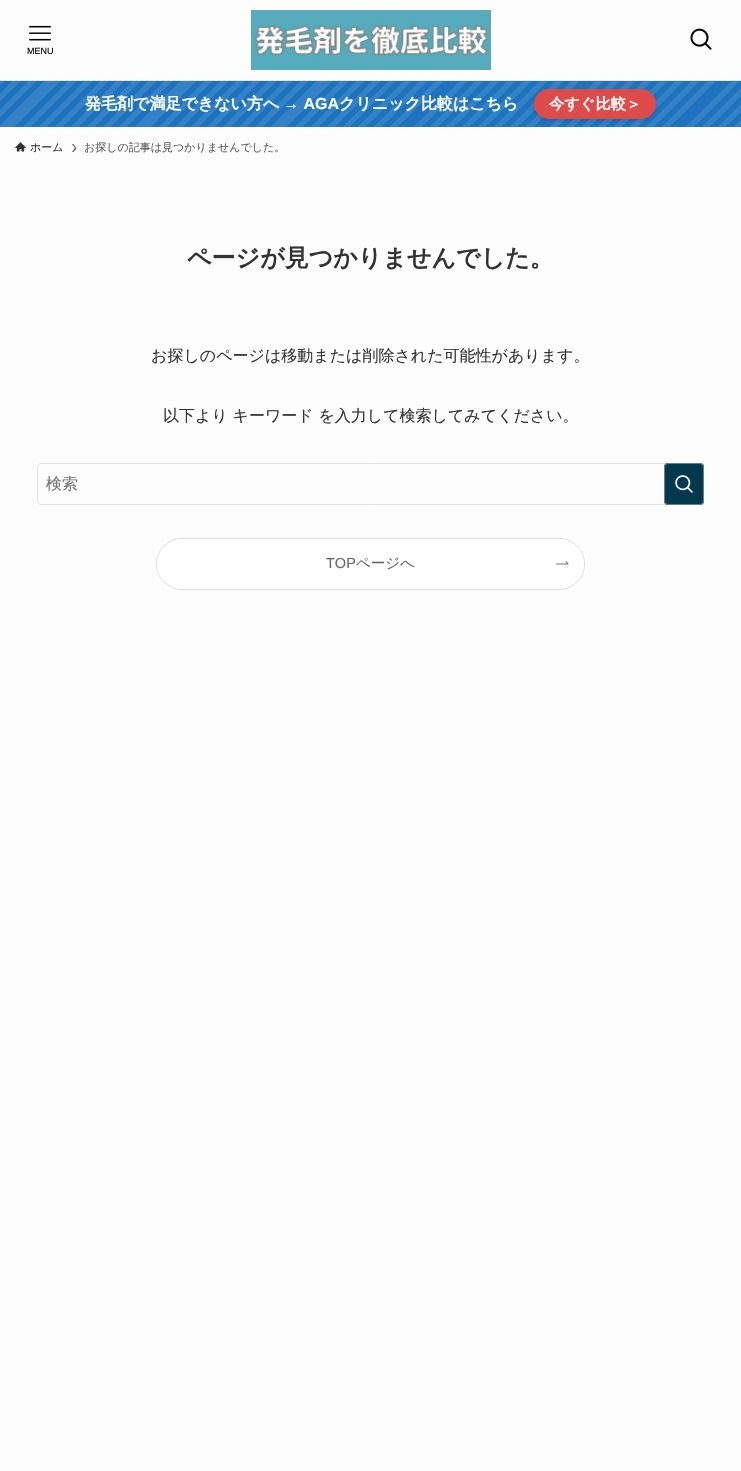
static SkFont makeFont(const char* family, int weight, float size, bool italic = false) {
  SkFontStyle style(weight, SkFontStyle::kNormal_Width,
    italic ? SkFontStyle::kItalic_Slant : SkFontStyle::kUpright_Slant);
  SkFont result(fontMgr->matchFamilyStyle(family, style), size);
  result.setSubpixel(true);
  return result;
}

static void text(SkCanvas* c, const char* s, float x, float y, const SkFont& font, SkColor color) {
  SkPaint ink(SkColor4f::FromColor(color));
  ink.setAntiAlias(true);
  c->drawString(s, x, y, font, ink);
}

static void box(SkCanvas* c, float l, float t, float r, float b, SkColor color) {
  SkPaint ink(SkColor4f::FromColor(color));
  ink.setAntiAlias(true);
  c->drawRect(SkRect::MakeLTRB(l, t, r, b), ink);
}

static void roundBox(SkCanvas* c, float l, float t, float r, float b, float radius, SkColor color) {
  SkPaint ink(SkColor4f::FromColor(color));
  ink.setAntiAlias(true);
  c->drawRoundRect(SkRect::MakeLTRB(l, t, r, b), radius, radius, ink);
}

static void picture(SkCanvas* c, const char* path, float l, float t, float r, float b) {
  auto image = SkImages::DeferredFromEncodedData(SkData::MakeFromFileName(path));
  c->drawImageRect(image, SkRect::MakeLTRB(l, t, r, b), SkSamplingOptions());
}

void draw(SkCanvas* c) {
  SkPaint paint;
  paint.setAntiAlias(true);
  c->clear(0xfffdfdfd);
  box(c, 0, 80, 741, 81, 0xffe6e6e6);
  picture(c, "img_01.png", 251, 10, 491, 70);
  picture(c, "img_02.png", 690, 28, 712, 50);
  picture(c, "img_03.png", 29, 25, 51, 41);
  SkFont face1 = makeFont("Liberation Sans", 400, 9);
  text(c, "MENU", 27, 54, face1, 0xff000000);
  {
    const SkColor colors[] = {0xff3581c5, 0xff3581c5, 0xff1e73be, 0xff1e73be, 0xff3581c5, 0xff3581c5, 0xff1e73be, 0xff1e73be, 0xff3581c5, 0xff3581c5, 0xff1e73be, 0xff1e73be, 0xff3581c5, 0xff3581c5, 0xff1e73be, 0xff1e73be, 0xff3581c5, 0xff3581c5, 0xff1e73be, 0xff1e73be, 0xff3581c5, 0xff3581c5, 0xff1e73be, 0xff1e73be, 0xff3581c5, 0xff3581c5, 0xff1e73be, 0xff1e73be, 0xff3581c5, 0xff3581c5, 0xff1e73be, 0xff1e73be, 0xff3581c5, 0xff3581c5, 0xff1e73be, 0xff1e73be, 0xff3581c5, 0xff3581c5, 0xff1e73be, 0xff1e73be, 0xff3581c5, 0xff3581c5, 0xff1e73be, 0xff1e73be, 0xff3581c5, 0xff3581c5, 0xff1e73be, 0xff1e73be, 0xff3581c5, 0xff3581c5, 0xff1e73be, 0xff1e73be, 0xff3581c5, 0xff3581c5, 0xff1e73be, 0xff1e73be, 0xff3581c5, 0xff3581c5, 0xff1e73be, 0xff1e73be, 0xff3581c5, 0xff3581c5, 0xff1e73be, 0xff1e73be, 0xff3581c5, 0xff3581c5, 0xff1e73be, 0xff1e73be, 0xff3581c5, 0xff3581c5, 0xff1e73be, 0xff1e73be, 0xff3581c5, 0xff3581c5, 0xff1e73be, 0xff1e73be, 0xff3581c5, 0xff3581c5, 0xff1e73be, 0xff1e73be, 0xff3581c5, 0xff3581c5, 0xff1e73be, 0xff1e73be, 0xff3581c5, 0xff3581c5, 0xff1e73be, 0xff1e73be, 0xff3581c5, 0xff3581c5, 0xff1e73be, 0xff1e73be, 0xff3581c5, 0xff3581c5, 0xff1e73be, 0xff1e73be, 0xff3581c5, 0xff3581c5, 0xff1e73be, 0xff1e73be, 0xff3581c5, 0xff3581c5, 0xff1e73be, 0xff1e73be, 0xff3581c5, 0xff3581c5, 0xff1e73be, 0xff1e73be, 0xff3581c5, 0xff3581c5, 0xff1e73be, 0xff1e73be, 0xff3581c5, 0xff3581c5, 0xff1e73be, 0xff1e73be, 0xff3581c5, 0xff3581c5, 0xff1e73be, 0xff1e73be, 0xff3581c5, 0xff3581c5, 0xff1e73be, 0xff1e73be, 0xff3581c5, 0xff3581c5, 0xff1e73be, 0xff1e73be, 0xff3581c5, 0xff3581c5, 0xff1e73be, 0xff1e73be, 0xff3581c5, 0xff3581c5, 0xff1e73be, 0xff1e73be, 0xff3581c5, 0xff3581c5, 0xff1e73be, 0xff1e73be, 0xff3581c5, 0xff3581c5, 0xff1e73be, 0xff1e73be, 0xff3581c5, 0xff3581c5, 0xff1e73be, 0xff1e73be, 0xff3581c5, 0xff3581c5, 0xff1e73be, 0xff1e73be, 0xff3581c5, 0xff3581c5, 0xff1e73be, 0xff1e73be, 0xff3581c5, 0xff3581c5, 0xff1e73be, 0xff1e73be, 0xff3581c5, 0xff3581c5, 0xff1e73be, 0xff1e73be, 0xff3581c5, 0xff3581c5, 0xff1e73be, 0xff1e73be, 0xff3581c5, 0xff3581c5, 0xff1e73be, 0xff1e73be, 0xff3581c5, 0xff3581c5, 0xff1e73be, 0xff1e73be, 0xff3581c5, 0xff3581c5, 0xff1e73be, 0xff1e73be, 0xff3581c5, 0xff3581c5, 0xff1e73be, 0xff1e73be, 0xff3581c5, 0xff3581c5, 0xff1e73be, 0xff1e73be};
    const float stops[] = {0, 0.01f, 0.01f, 0.02f, 0.02f, 0.03f, 0.03f, 0.04f, 0.04f, 0.05f, 0.05f, 0.06f, 0.06f, 0.07f, 0.07f, 0.09f, 0.09f, 0.1f, 0.1f, 0.11f, 0.11f, 0.12f, 0.12f, 0.13f, 0.13f, 0.14f, 0.14f, 0.15f, 0.15f, 0.16f, 0.16f, 0.17f, 0.17f, 0.18f, 0.18f, 0.19f, 0.19f, 0.2f, 0.2f, 0.21f, 0.21f, 0.22f, 0.22f, 0.23f, 0.23f, 0.24f, 0.24f, 0.26f, 0.26f, 0.27f, 0.27f, 0.28f, 0.28f, 0.29f, 0.29f, 0.3f, 0.3f, 0.31f, 0.31f, 0.32f, 0.32f, 0.33f, 0.33f, 0.34f, 0.34f, 0.35f, 0.35f, 0.36f, 0.36f, 0.37f, 0.37f, 0.38f, 0.38f, 0.39f, 0.39f, 0.4f, 0.4f, 0.41f, 0.41f, 0.43f, 0.43f, 0.44f, 0.44f, 0.45f, 0.45f, 0.46f, 0.46f, 0.47f, 0.47f, 0.48f, 0.48f, 0.49f, 0.49f, 0.5f, 0.5f, 0.51f, 0.51f, 0.52f, 0.52f, 0.53f, 0.53f, 0.54f, 0.54f, 0.55f, 0.55f, 0.56f, 0.56f, 0.57f, 0.57f, 0.59f, 0.59f, 0.6f, 0.6f, 0.61f, 0.61f, 0.62f, 0.62f, 0.63f, 0.63f, 0.64f, 0.64f, 0.65f, 0.65f, 0.66f, 0.66f, 0.67f, 0.67f, 0.68f, 0.68f, 0.69f, 0.69f, 0.7f, 0.7f, 0.71f, 0.71f, 0.72f, 0.72f, 0.73f, 0.73f, 0.74f, 0.74f, 0.76f, 0.76f, 0.77f, 0.77f, 0.78f, 0.78f, 0.79f, 0.79f, 0.8f, 0.8f, 0.81f, 0.81f, 0.82f, 0.82f, 0.83f, 0.83f, 0.84f, 0.84f, 0.85f, 0.85f, 0.86f, 0.86f, 0.87f, 0.87f, 0.88f, 0.88f, 0.89f, 0.89f, 0.9f, 0.9f, 0.91f, 0.91f, 0.93f, 0.93f, 0.94f, 0.94f, 0.95f, 0.95f, 0.96f, 0.96f, 0.97f, 0.97f, 0.98f, 0.98f, 0.99f, 0.99f, 1};
    const SkPoint ends[] = {{567, 301}, {168, -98}};
    paint.setShader(SkGradientShader::MakeLinear(ends, colors, stops, 188, SkTileMode::kClamp));
    paint.setAlpha(255);
  }
  c->drawRect(SkRect::MakeLTRB(0, 81, 741, 127), paint);
  SkFont face2 = makeFont("WenQuanYi Zen Hei", 700, 16);
  text(c, "発毛剤で満足できない方へ", 85, 109, face2, 0xffffffff);
  SkFont face3 = makeFont("Liberation Sans", 700, 16);
  text(c, "→ AGA", 283, 109, face3, 0xffffffff);
  text(c, "クリニック比較はこちら", 339, 109, face2, 0xffffffff);
  paint.setShader(nullptr);
  paint.setColor(0x1f000000);
  paint.setMaskFilter(SkMaskFilter::MakeBlur(kNormal_SkBlurStyle, 2));
  c->drawRoundRect(SkRect::MakeLTRB(534, 91, 656, 121), 15, 15, paint);
  paint.setMaskFilter(nullptr);
  roundBox(c, 534, 89, 656, 119, 15, 0xffdd4b4b);
  SkFont face4 = makeFont("WenQuanYi Zen Hei", 700, 15.25f);
  text(c, "今すぐ比較＞", 549, 109, face4, 0xffffffff);
  picture(c, "img_04.png", 15, 142, 26, 152);
  SkFont face5 = makeFont("WenQuanYi Zen Hei", 500, 11);
  text(c, "ホーム", 30, 151, face5, 0xff333333);
  paint.setColor(0xff5b5b5b);
  c->drawPath(SkPathBuilder().moveTo(73.5f, 144).lineTo(72, 144).lineTo(75, 148).lineTo(72, 152).lineTo(73.5f, 152).lineTo(76.5f, 148.5f).close().detach(), paint);
  text(c, "お探しの記事は見つかりませんでした。", 84, 151, face5, 0xff5b5b5b);
  SkFont face6 = makeFont("WenQuanYi Zen Hei", 700, 24);
  text(c, "ページが見つかりませんでした。", 187, 266, face6, 0xff333333);
  SkFont face7 = makeFont("WenQuanYi Zen Hei", 500, 16);
  text(c, "お探しのページは移動または削除された可能性があります。", 151, 361, face7, 0xff333333);
  text(c, "以下より キーワード を入力して検索してみてください。", 163, 421, face7, 0xff333333);
  paint.setStyle(SkPaint::kStroke_Style);
  paint.setStrokeWidth(1);
  paint.setColor(0xffe3e3e3);
  c->drawRoundRect(SkRect::MakeLTRB(37.5f, 463.5f, 703.5f, 504.5f), 3.5f, 3.5f, paint);
  text(c, "検索", 46, 489, face7, 0xff757575);
  roundBox(c, 664, 463, 704, 505, 4, 0xff04384c);
  paint.setColor(0x80c7c7c7);
  c->drawRoundRect(SkRect::MakeLTRB(664.5f, 463.5f, 703.5f, 504.5f), 3.5f, 3.5f, paint);
  picture(c, "img_05.png", 675, 475, 693, 493);
  paint.setColor(0xffdcdcdc);
  c->drawRoundRect(SkRect::MakeLTRB(156.5f, 538.5f, 584.5f, 589.5f), 25.5f, 25.5f, paint);
  roundBox(c, 157, 539, 584, 589, 25, 0xffffffff);
  SkFont face8 = makeFont("Liberation Sans", 400, 14.5f);
  text(c, "TOP", 326, 568, face8, 0xff666666);
  SkFont face9 = makeFont("WenQuanYi Zen Hei", 500, 14.5f);
  text(c, "ページへ", 356, 568, face9, 0xff666666);
  picture(c, "img_06.png", 556, 561, 569, 565);
}
